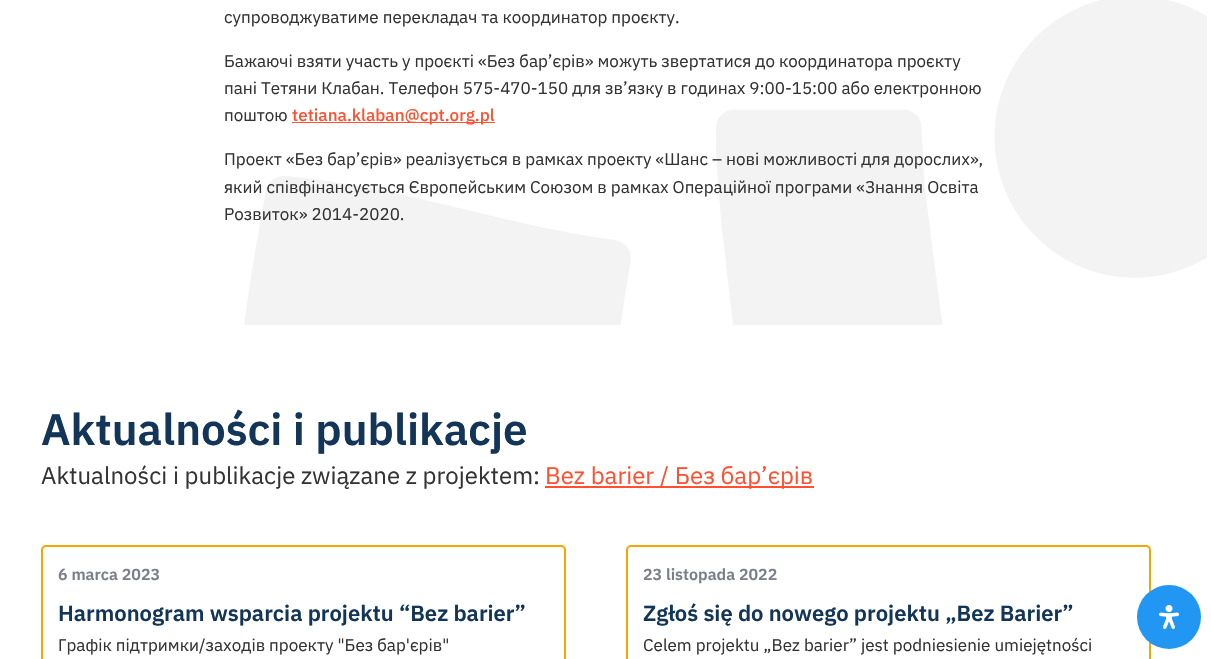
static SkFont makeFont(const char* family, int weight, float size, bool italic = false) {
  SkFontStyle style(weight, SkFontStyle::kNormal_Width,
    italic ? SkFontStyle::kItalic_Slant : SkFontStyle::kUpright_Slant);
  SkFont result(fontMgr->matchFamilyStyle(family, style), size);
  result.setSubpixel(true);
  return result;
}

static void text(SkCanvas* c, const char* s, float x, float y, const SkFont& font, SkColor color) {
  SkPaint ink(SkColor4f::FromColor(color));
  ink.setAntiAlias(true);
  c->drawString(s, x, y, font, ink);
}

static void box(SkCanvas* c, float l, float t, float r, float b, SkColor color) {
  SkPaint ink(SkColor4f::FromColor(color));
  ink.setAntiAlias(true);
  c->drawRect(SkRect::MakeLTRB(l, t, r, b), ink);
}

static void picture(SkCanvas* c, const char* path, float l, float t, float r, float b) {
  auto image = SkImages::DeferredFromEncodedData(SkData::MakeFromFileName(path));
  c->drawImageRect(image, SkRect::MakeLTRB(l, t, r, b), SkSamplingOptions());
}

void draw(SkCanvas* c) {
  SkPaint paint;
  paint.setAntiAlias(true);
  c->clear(0xffffffff);
  picture(c, "img_01.png", 244, 0, 1207, 325);
  SkFont face1 = makeFont("IBM Plex Sans", 400, 17);
  text(c, "супроводжуватиме перекладач та координатор проєкту.", 224, 23, face1, 0xff333333);
  text(c, "Бажаючі взяти участь у проєкті «Без бар’єрів» можуть звертатися до координатора проєкту", 224, 67, face1, 0xff333333);
  text(c, "пані Тетяни Клабан. Телефон 575-470-150 для зв’язку в годинах 9:00-15:00 або електронною", 224, 94, face1, 0xff333333);
  text(c, "поштою", 224, 121, face1, 0xff333333);
  box(c, 292, 122, 495, 123, 0xffff5131);
  SkFont face2 = makeFont("IBM Plex Sans", 500, 17);
  text(c, "tetiana.klaban@cpt.org.pl", 292, 121, face2, 0xffff5131);
  text(c, "Проект «Без бар’єрів» реалізується в рамках проекту «Шанс – нові можливості для дорослих»,", 224, 165, face1, 0xff333333);
  text(c, "який співфінансується Європейським Союзом в рамках Операційної програми «Знання Освіта", 224, 193, face1, 0xff333333);
  text(c, "Розвиток» 2014-2020.", 224, 220, face1, 0xff333333);
  SkFont face3 = makeFont("IBM Plex Sans", 600, 44);
  text(c, "Aktualności i publikacje", 41, 445, face3, 0xff133658);
  SkFont face4 = makeFont("IBM Plex Sans", 400, 24);
  text(c, "Aktualności i publikacje związane z projektem:", 41, 484, face4, 0xff333333);
  box(c, 545, 486, 814, 488, 0xffff5131);
  text(c, "Bez barier / Без бар’єрів", 545, 484, face4, 0xffff5131);
  paint.setStyle(SkPaint::kStroke_Style);
  paint.setStrokeWidth(2);
  paint.setColor(0xfff7a600);
  c->drawRoundRect(SkRect::MakeLTRB(42, 546, 565, 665), 4, 4, paint);
  SkFont face5 = makeFont("IBM Plex Sans", 600, 16);
  text(c, "6 marca 2023", 58, 580, face5, 0xff797e8a);
  SkFont face6 = makeFont("IBM Plex Sans", 600, 22);
  text(c, "Harmonogram wsparcia projektu “Bez barier”", 58, 621, face6, 0xff133658);
  text(c, "Графік підтримки/заходів проекту \"Без бар'єрів\"", 58, 651, face1, 0xff333333);
  c->drawRoundRect(SkRect::MakeLTRB(627, 546, 1150, 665), 4, 4, paint);
  text(c, "23 listopada 2022", 643, 580, face5, 0xff797e8a);
  text(c, "Zgłoś się do nowego projektu „Bez Barier”", 643, 621, face6, 0xff133658);
  text(c, "Celem projektu „Bez barier” jest podniesienie umiejętności", 643, 651, face1, 0xff333333);
  paint.setStyle(SkPaint::kFill_Style);
  paint.setColor(0xff2196f3);
  c->drawCircle(1169, 617, 32, paint);
  picture(c, "img_02.png", 1159, 605, 1179, 629);
}
